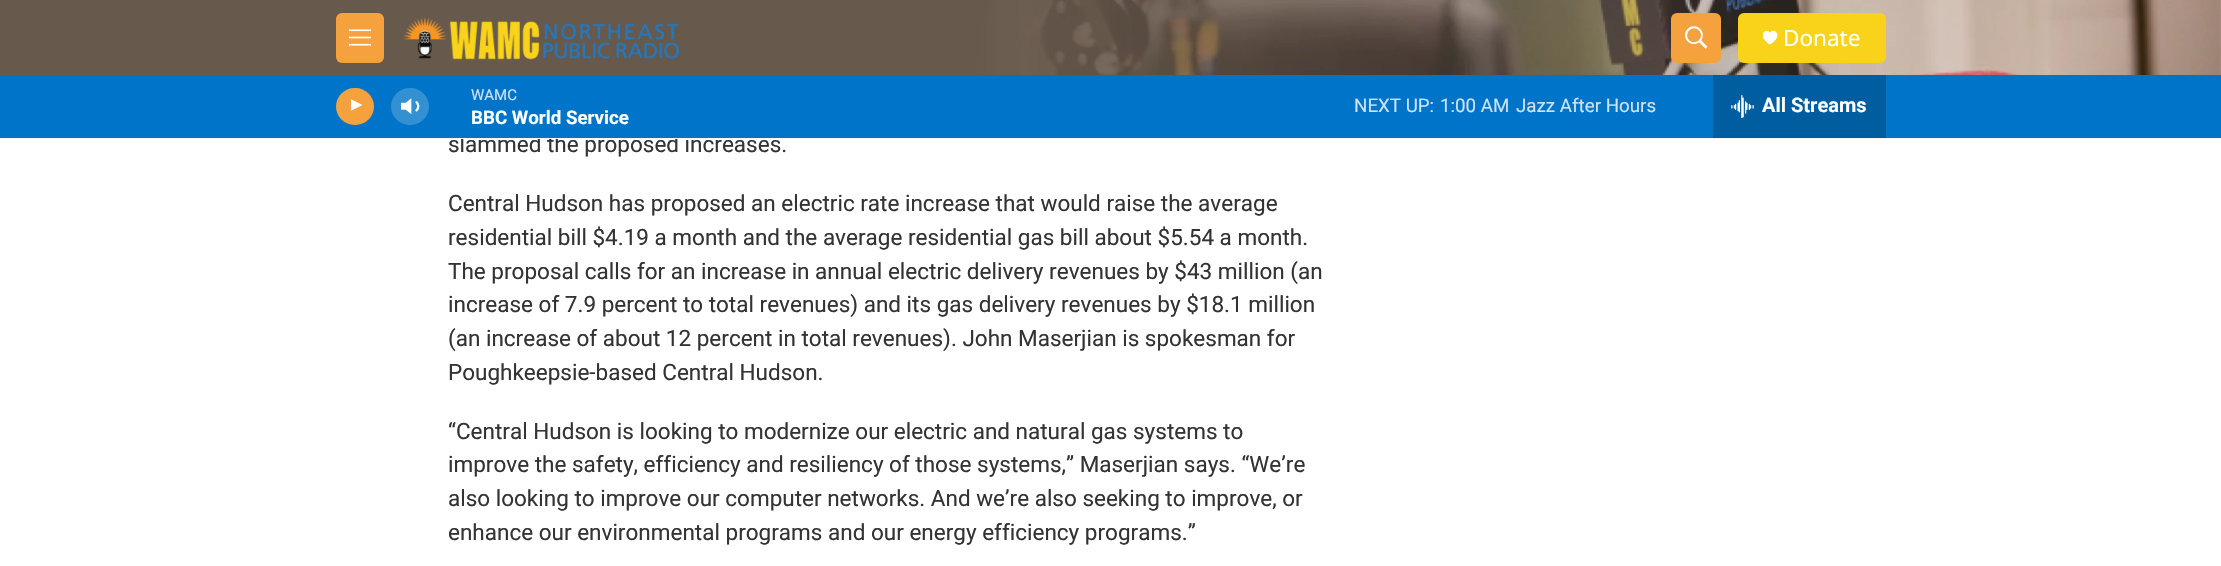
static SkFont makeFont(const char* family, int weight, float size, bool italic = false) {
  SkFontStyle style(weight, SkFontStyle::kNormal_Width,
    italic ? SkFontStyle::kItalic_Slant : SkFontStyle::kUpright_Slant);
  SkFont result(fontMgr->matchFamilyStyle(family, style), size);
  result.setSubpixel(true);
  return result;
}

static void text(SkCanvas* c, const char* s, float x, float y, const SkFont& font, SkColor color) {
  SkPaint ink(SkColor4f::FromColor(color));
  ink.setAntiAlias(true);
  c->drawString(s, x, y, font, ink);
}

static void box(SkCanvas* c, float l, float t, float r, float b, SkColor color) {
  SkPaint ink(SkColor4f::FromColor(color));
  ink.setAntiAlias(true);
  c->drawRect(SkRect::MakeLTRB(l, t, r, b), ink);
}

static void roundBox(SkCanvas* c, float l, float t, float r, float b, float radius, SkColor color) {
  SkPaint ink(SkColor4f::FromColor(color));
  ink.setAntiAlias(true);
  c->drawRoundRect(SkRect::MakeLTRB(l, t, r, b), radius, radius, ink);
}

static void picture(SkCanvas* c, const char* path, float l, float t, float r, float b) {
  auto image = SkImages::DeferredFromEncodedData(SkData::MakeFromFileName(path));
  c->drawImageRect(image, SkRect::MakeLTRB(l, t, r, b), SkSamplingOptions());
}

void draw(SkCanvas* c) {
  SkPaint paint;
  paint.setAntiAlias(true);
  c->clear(0xffffffff);
  SkFont face1 = makeFont("Roboto", 400, 22.5f);
  text(c, "slammed the proposed increases.", 448, 152, face1, 0xff333333);
  box(c, 0, 138, 2221, 139, 0xfff5f5f5);
  picture(c, "img_01.png", 0, 0, 2221, 75);
  roundBox(c, 336, 13, 384, 63, 6, 0xfff5a13d);
  picture(c, "img_02.png", 349, 29, 371, 46);
  picture(c, "img_03.png", 403, 17, 680, 60);
  roundBox(c, 1671, 13, 1721, 63, 6, 0xfff5a13d);
  picture(c, "img_04.png", 1685, 26, 1708, 49);
  roundBox(c, 1738, 13, 1886, 63, 6, 0xfff9d319);
  c->save();
  c->clipRect(SkRect::MakeLTRB(1763, 30, 1778, 45));
  paint.setColor(0xffffffff);
  c->drawPath(SkPathBuilder().moveTo(1770, 33).cubicTo(1767.5f, 26.5f, 1754.5f, 35, 1770, 44.5f).cubicTo(1785.5f, 35, 1772.5f, 26.5f, 1770, 33).close().detach(), paint);
  c->restore();
  SkFont face2 = makeFont("Noto Sans", 400, 22.5f);
  text(c, "Donate", 1783, 46, face2, 0xffffffff);
  box(c, 0, 75, 2221, 138, 0xff0074c8);
  roundBox(c, 336, 88, 374, 125, 18.5f, 0xfff5a13d);
  c->save();
  c->clipRect(SkRect::MakeLTRB(351, 98, 365, 116));
  c->drawPath(SkPathBuilder().moveTo(350.5f, 99).lineTo(362.5f, 105).lineTo(350.5f, 111).close().detach(), paint);
  c->restore();
  picture(c, "img_05.png", 401, 98, 420, 115);
  roundBox(c, 391, 88, 429, 125, 18.5f, 0x33ffffff);
  SkFont face3 = makeFont("Roboto", 400, 15);
  text(c, "WAMC", 471, 100, face3, 0xffcce3f4);
  SkFont face4 = makeFont("Roboto", 700, 18.75f);
  text(c, "BBC World Service", 471, 124, face4, 0xffffffff);
  SkFont face5 = makeFont("Roboto", 400, 18.75f);
  text(c, "NEXT UP:", 1354, 112, face5, 0xffcce3f4);
  text(c, "1:00 AM", 1440, 112, face5, 0xffcce3f4);
  text(c, "Jazz After Hours", 1516, 112, face5, 0xffcce3f4);
  box(c, 1713, 75, 1886, 138, 0xff005da0);
  picture(c, "img_06.png", 1731, 95, 1754, 118);
  SkFont face6 = makeFont("Roboto", 700, 20);
  text(c, "All Streams", 1762, 112, face6, 0xffffffff);
  text(c, "Central Hudson has proposed an electric rate increase that would raise the average", 448, 211, face1, 0xff333333);
  text(c, "residential bill $4.19 a month and the average residential gas bill about $5.54 a month.", 448, 245, face1, 0xff333333);
  text(c, "The proposal calls for an increase in annual electric delivery revenues by $43 million (an", 448, 279, face1, 0xff333333);
  text(c, "increase of 7.9 percent to total revenues) and its gas delivery revenues by $18.1 million", 448, 312, face1, 0xff333333);
  text(c, "(an increase of about 12 percent in total revenues). John Maserjian is spokesman for", 448, 346, face1, 0xff333333);
  text(c, "Poughkeepsie-based Central Hudson.", 448, 380, face1, 0xff333333);
  text(c, "“Central Hudson is looking to modernize our electric and natural gas systems to", 448, 439, face1, 0xff333333);
  text(c, "improve the safety, efficiency and resiliency of those systems,” Maserjian says. “We’re", 448, 472, face1, 0xff333333);
  text(c, "also looking to improve our computer networks. And we’re also seeking to improve, or", 448, 506, face1, 0xff333333);
  text(c, "enhance our environmental programs and our energy efficiency programs.”", 448, 540, face1, 0xff333333);
}
